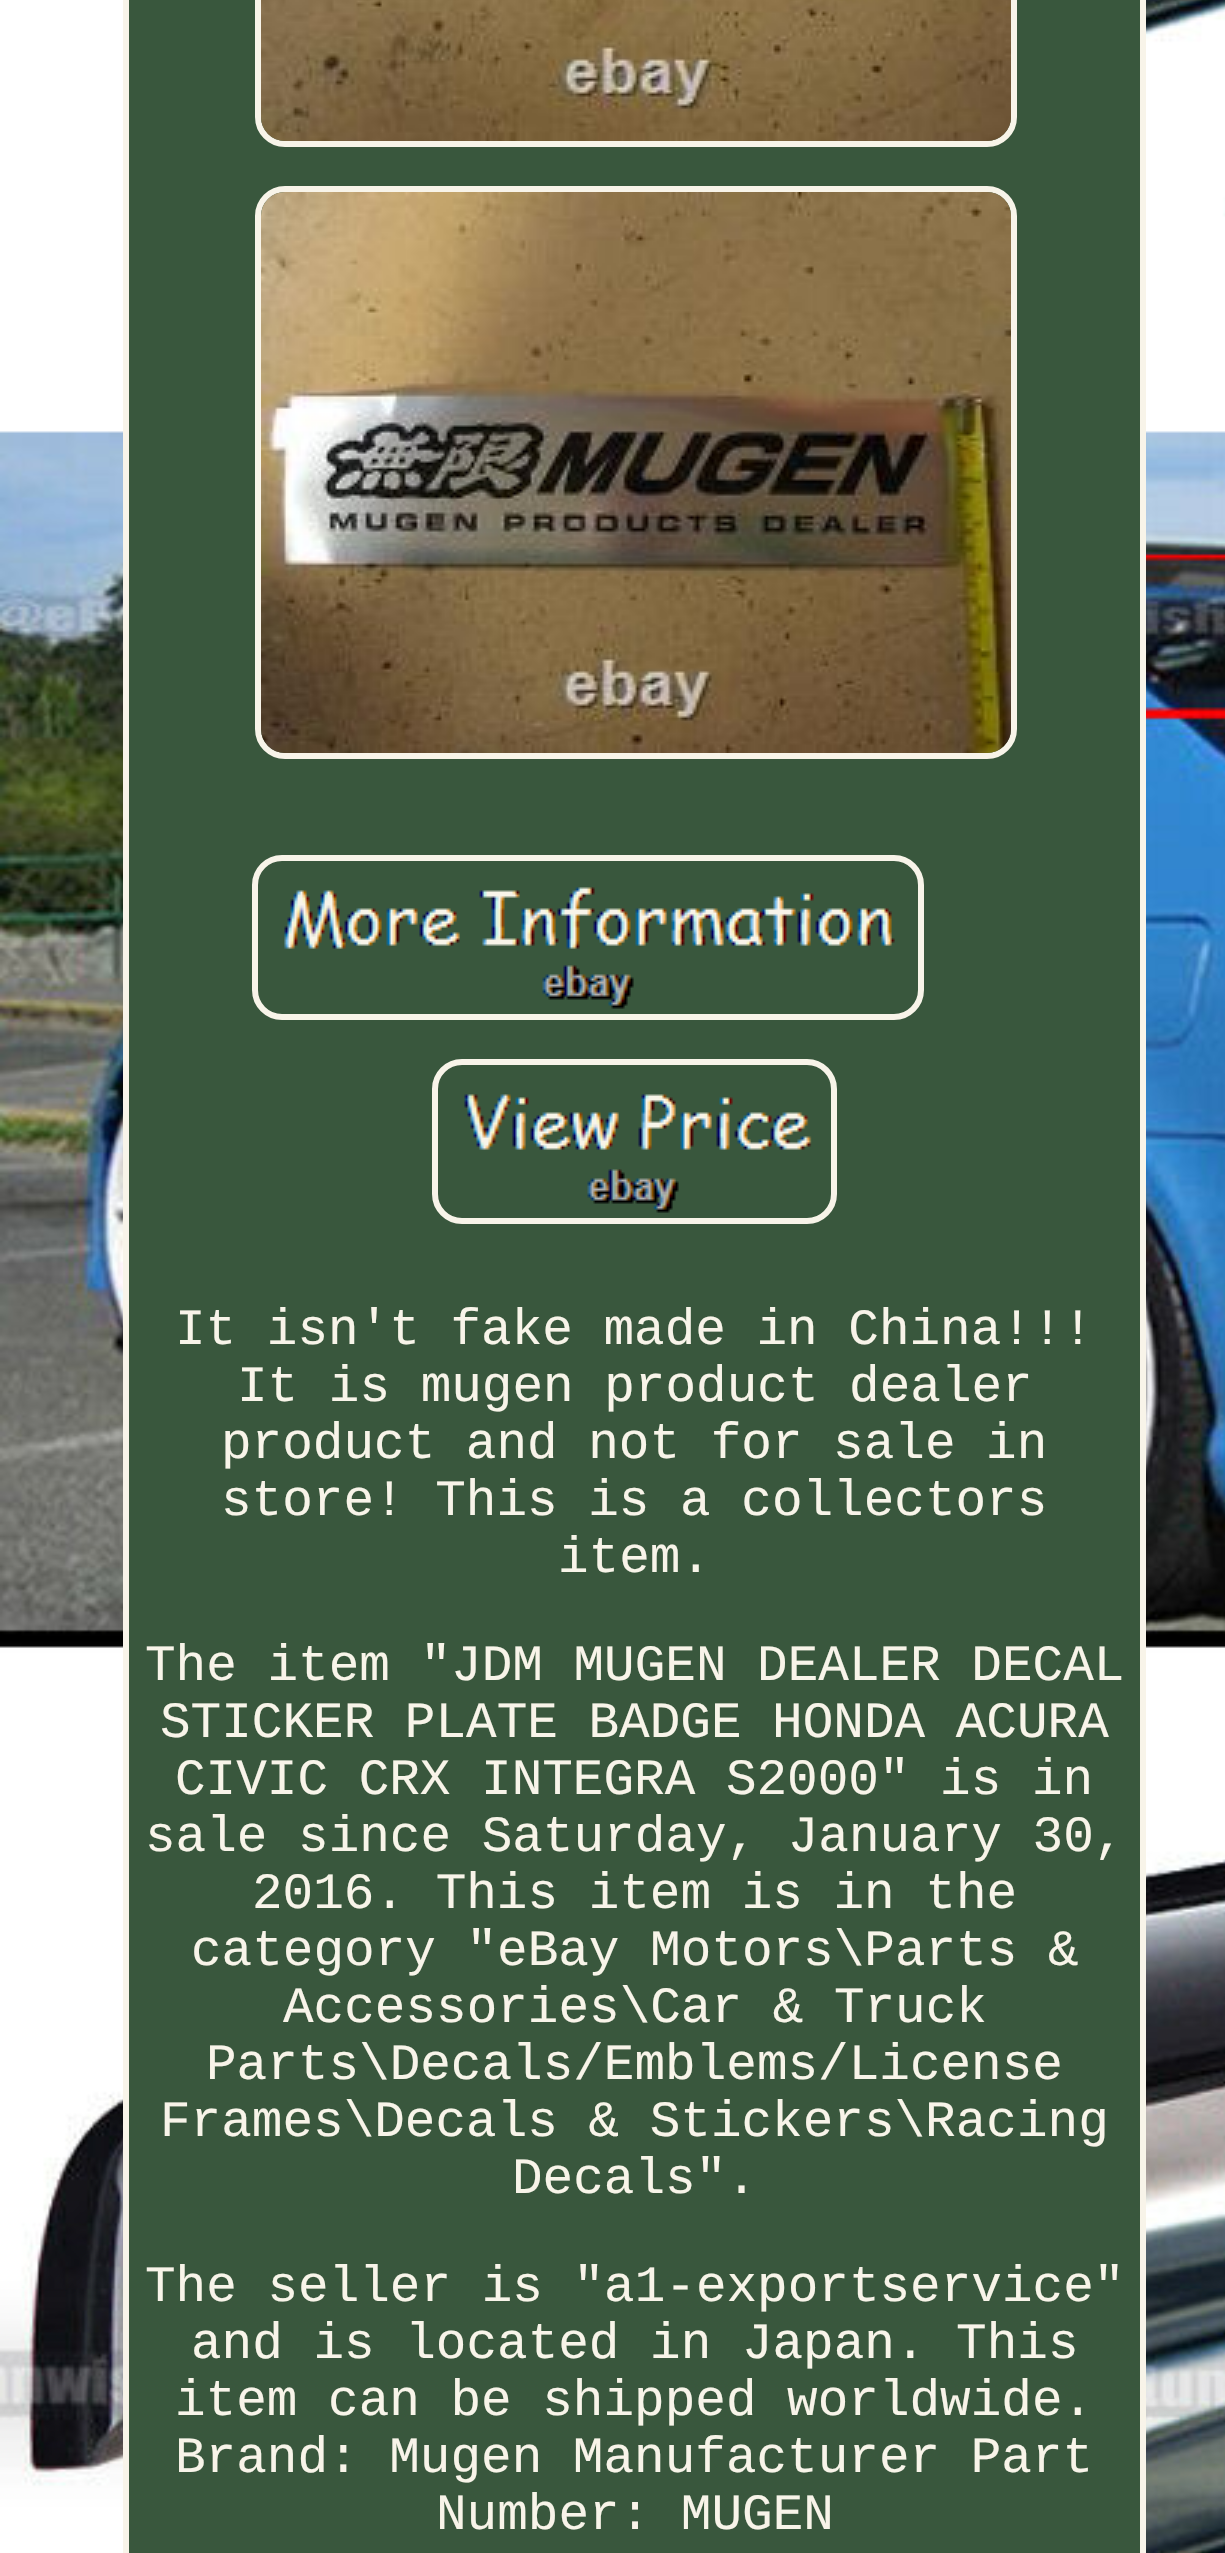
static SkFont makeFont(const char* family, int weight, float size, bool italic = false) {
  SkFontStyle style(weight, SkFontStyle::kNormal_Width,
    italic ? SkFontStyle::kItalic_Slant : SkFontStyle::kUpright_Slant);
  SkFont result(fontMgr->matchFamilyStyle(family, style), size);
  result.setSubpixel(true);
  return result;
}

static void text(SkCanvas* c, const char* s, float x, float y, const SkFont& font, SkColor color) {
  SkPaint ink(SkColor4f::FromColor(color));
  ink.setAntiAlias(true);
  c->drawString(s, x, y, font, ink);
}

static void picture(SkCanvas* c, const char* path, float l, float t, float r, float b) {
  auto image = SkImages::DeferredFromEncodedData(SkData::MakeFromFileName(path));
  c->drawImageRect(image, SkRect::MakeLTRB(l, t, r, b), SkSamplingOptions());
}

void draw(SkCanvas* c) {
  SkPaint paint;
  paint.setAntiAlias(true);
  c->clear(0xffffffff);
  picture(c, "img_01.png", 0, 0, 1225, 2553);
  paint.setColor(0xff39573d);
  c->drawRect(SkRect::MakeLTRB(126, -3, 1143, 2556), paint);
  paint.setStyle(SkPaint::kStroke_Style);
  paint.setStrokeWidth(6);
  paint.setColor(0xfff8f4e9);
  c->drawRect(SkRect::MakeLTRB(126, -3, 1143, 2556), paint);
  c->drawRoundRect(SkRect::MakeLTRB(258, -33, 1014, 144), 27, 27, paint);
  picture(c, "img_02.png", 261, 0, 1011, 141);
  c->drawRoundRect(SkRect::MakeLTRB(258, 189, 1014, 756), 27, 27, paint);
  picture(c, "img_03.png", 261, 192, 1011, 753);
  c->drawRoundRect(SkRect::MakeLTRB(255, 858, 921, 1017), 27, 27, paint);
  picture(c, "img_04.png", 284, 887, 895, 1009);
  c->drawRoundRect(SkRect::MakeLTRB(435, 1062, 834, 1221), 27, 27, paint);
  picture(c, "img_05.png", 464, 1094, 812, 1213);
  SkFont face1 = makeFont("Liberation Mono", 400, 51);
  text(c, "It isn't fake made in China!!!", 175, 1344, face1, 0xfff8f4e9);
  text(c, "It is mugen product dealer", 237, 1401, face1, 0xfff8f4e9);
  text(c, "product and not for sale in", 221, 1458, face1, 0xfff8f4e9);
  text(c, "store! This is a collectors", 221, 1515, face1, 0xfff8f4e9);
  text(c, "item.", 558, 1572, face1, 0xfff8f4e9);
  text(c, "The item \"JDM MUGEN DEALER DECAL", 145, 1680, face1, 0xfff8f4e9);
  text(c, "STICKER PLATE BADGE HONDA ACURA", 160, 1737, face1, 0xfff8f4e9);
  text(c, "CIVIC CRX INTEGRA S2000\" is in", 175, 1794, face1, 0xfff8f4e9);
  text(c, "sale since Saturday, January 30,", 145, 1851, face1, 0xfff8f4e9);
  text(c, "2016. This item is in the", 252, 1908, face1, 0xfff8f4e9);
  text(c, "category \"eBay Motors\\Parts &", 191, 1965, face1, 0xfff8f4e9);
  text(c, "Accessories\\Car & Truck", 283, 2022, face1, 0xfff8f4e9);
  text(c, "Parts\\Decals/Emblems/License", 206, 2079, face1, 0xfff8f4e9);
  text(c, "Frames\\Decals & Stickers\\Racing", 160, 2136, face1, 0xfff8f4e9);
  text(c, "Decals\".", 512, 2193, face1, 0xfff8f4e9);
  text(c, "The seller is \"a1-exportservice\"", 145, 2301, face1, 0xfff8f4e9);
  text(c, "and is located in Japan. This", 191, 2358, face1, 0xfff8f4e9);
  text(c, "item can be shipped worldwide.", 175, 2415, face1, 0xfff8f4e9);
  text(c, "Brand: Mugen Manufacturer Part", 175, 2472, face1, 0xfff8f4e9);
  text(c, "Number: MUGEN", 436, 2529, face1, 0xfff8f4e9);
}
